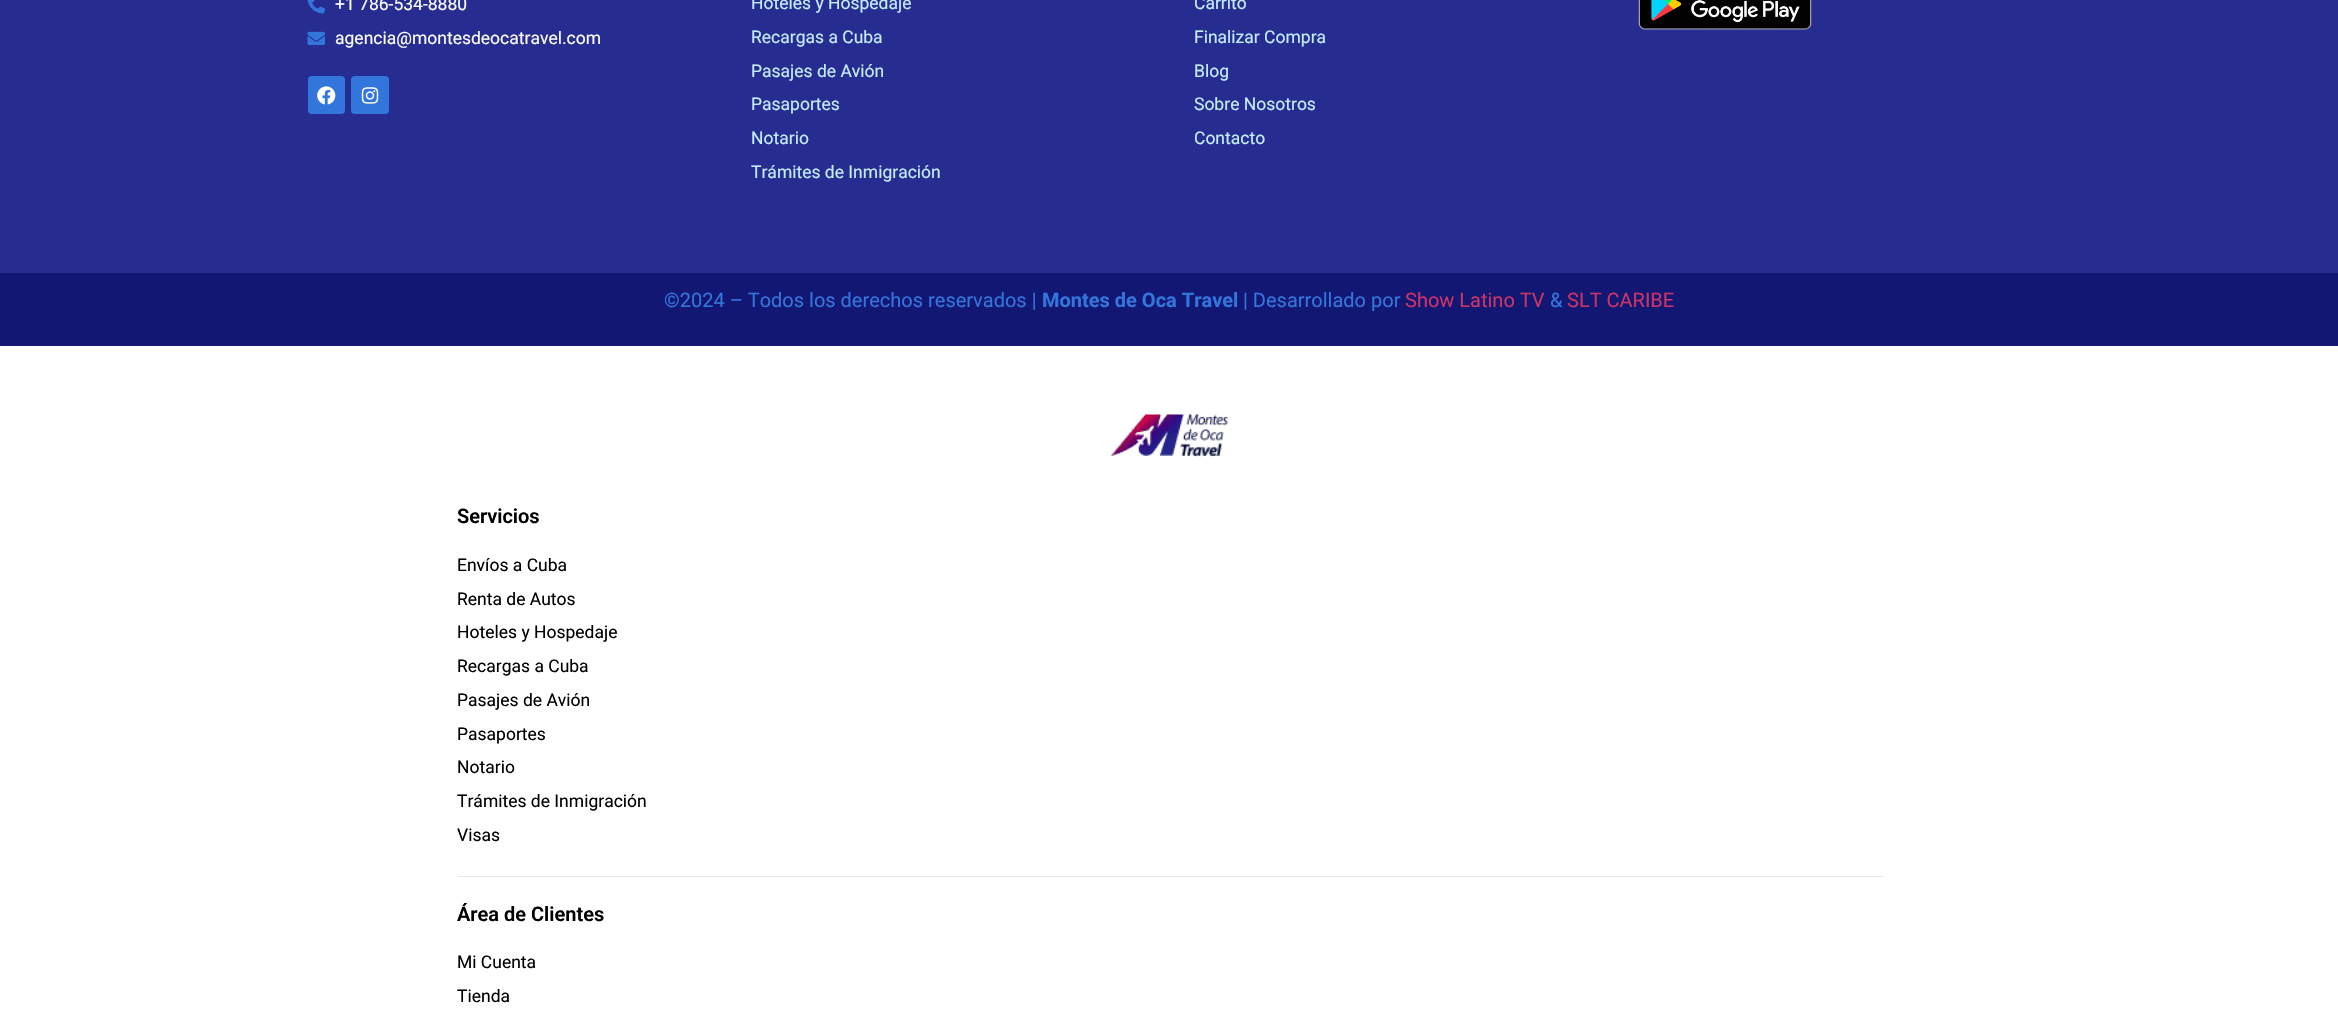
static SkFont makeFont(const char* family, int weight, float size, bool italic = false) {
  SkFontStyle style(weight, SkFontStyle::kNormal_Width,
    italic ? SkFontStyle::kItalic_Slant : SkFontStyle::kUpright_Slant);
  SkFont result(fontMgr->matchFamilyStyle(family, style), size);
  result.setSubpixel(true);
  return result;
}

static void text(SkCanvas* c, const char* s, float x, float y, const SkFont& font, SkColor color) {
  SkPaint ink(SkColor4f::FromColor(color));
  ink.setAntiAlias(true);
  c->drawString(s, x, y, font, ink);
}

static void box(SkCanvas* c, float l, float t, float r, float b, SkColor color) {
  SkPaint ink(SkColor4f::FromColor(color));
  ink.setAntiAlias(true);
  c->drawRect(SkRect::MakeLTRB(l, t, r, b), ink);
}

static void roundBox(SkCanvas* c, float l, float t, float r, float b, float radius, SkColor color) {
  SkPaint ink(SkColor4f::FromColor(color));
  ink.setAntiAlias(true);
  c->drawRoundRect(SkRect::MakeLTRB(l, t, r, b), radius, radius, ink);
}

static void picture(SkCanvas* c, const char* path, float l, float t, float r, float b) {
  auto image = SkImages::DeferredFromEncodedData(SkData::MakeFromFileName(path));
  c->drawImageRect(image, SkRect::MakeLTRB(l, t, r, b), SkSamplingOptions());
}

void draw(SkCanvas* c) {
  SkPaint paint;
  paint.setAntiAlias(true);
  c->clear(0xffffffff);
  box(c, 0, 0, 2338, 273, 0xff272c91);
  picture(c, "img_01.png", 307, 0, 325, 14);
  SkFont face1 = makeFont("Roboto", 400, 17.5f);
  text(c, "+1 786-534-8880", 335, 10, face1, 0xffffffff);
  picture(c, "img_02.png", 307, 31, 325, 45);
  text(c, "agencia@montesdeocatravel.com", 335, 44, face1, 0xffffffff);
  roundBox(c, 308, 76, 345, 114, 4, 0xff3376db);
  picture(c, "img_03.png", 317, 86, 336, 105);
  roundBox(c, 351, 76, 389, 114, 4, 0xff3376db);
  picture(c, "img_04.png", 361, 87, 379, 104);
  text(c, "Hoteles y Hospedaje", 751, 9, face1, 0xffc4eeff);
  text(c, "Recargas a Cuba", 751, 43, face1, 0xffc4eeff);
  text(c, "Pasajes de Avión", 751, 77, face1, 0xffc4eeff);
  text(c, "Pasaportes", 751, 110, face1, 0xffc4eeff);
  text(c, "Notario", 751, 144, face1, 0xffc4eeff);
  text(c, "Trámites de Inmigración", 751, 178, face1, 0xffc4eeff);
  text(c, "Carrito", 1194, 9, face1, 0xffc4eeff);
  text(c, "Finalizar Compra", 1194, 43, face1, 0xffc4eeff);
  text(c, "Blog", 1194, 77, face1, 0xffc4eeff);
  text(c, "Sobre Nosotros", 1194, 110, face1, 0xffc4eeff);
  text(c, "Contacto", 1194, 144, face1, 0xffc4eeff);
  picture(c, "img_05.png", 1638, 0, 1812, 30);
  box(c, 0, 273, 2338, 346, 0xff121774);
  SkFont face2 = makeFont("Roboto", 400, 20);
  text(c, "©2024 – Todos los derechos reservados |", 664, 307, face2, 0xff3376db);
  SkFont face3 = makeFont("Roboto", 700, 20);
  text(c, "Montes de Oca Travel", 1042, 307, face3, 0xff3376db);
  text(c, "| Desarrollado por", 1243, 307, face2, 0xff3376db);
  text(c, "Show Latino TV", 1405, 307, face2, 0xffcc3366);
  text(c, "&", 1550, 307, face2, 0xff3376db);
  text(c, "SLT CARIBE", 1567, 307, face2, 0xffcc3366);
  picture(c, "img_06.png", 1111, 414, 1228, 457);
  SkFont face4 = makeFont("Roboto", 600, 20);
  text(c, "Servicios", 457, 523, face4, 0xff000000);
  text(c, "Envíos a Cuba", 457, 571, face1, 0xff000000);
  text(c, "Renta de Autos", 457, 605, face1, 0xff000000);
  text(c, "Hoteles y Hospedaje", 457, 638, face1, 0xff000000);
  text(c, "Recargas a Cuba", 457, 672, face1, 0xff000000);
  text(c, "Pasajes de Avión", 457, 706, face1, 0xff000000);
  text(c, "Pasaportes", 457, 740, face1, 0xff000000);
  text(c, "Notario", 457, 773, face1, 0xff000000);
  text(c, "Trámites de Inmigración", 457, 807, face1, 0xff000000);
  text(c, "Visas", 457, 841, face1, 0xff000000);
  box(c, 458, 876, 1883, 877, 0xffe2e9ec);
  text(c, "Área de Clientes", 457, 921, face4, 0xff000000);
  text(c, "Mi Cuenta", 457, 968, face1, 0xff000000);
  text(c, "Tienda", 457, 1002, face1, 0xff000000);
}
